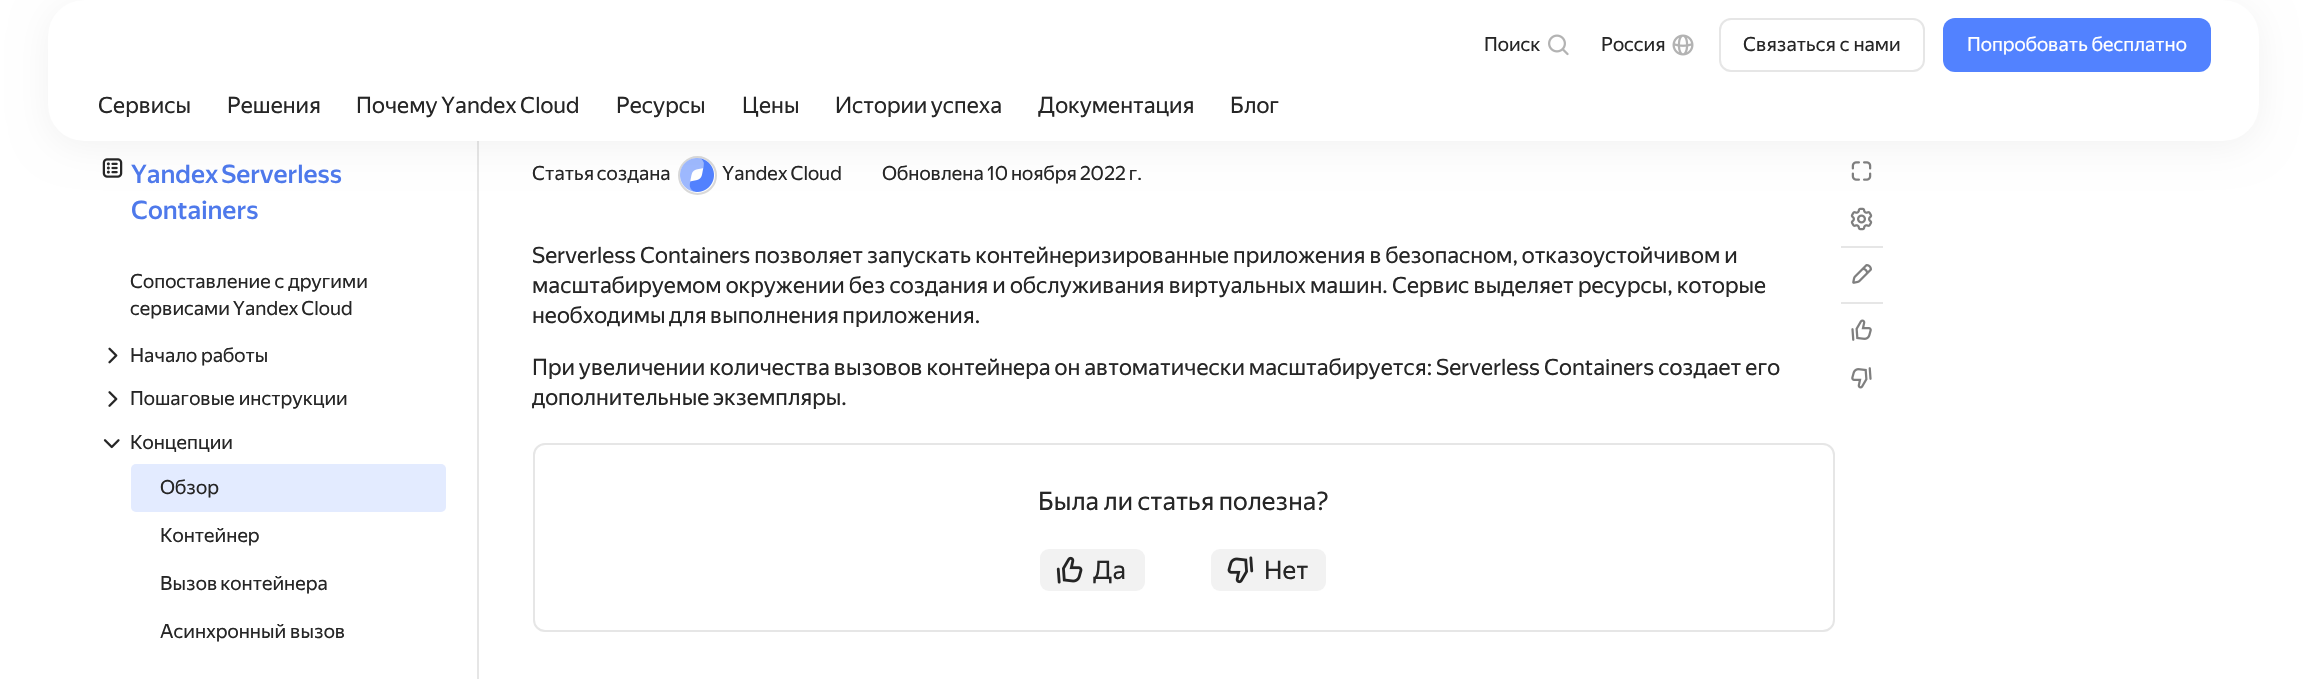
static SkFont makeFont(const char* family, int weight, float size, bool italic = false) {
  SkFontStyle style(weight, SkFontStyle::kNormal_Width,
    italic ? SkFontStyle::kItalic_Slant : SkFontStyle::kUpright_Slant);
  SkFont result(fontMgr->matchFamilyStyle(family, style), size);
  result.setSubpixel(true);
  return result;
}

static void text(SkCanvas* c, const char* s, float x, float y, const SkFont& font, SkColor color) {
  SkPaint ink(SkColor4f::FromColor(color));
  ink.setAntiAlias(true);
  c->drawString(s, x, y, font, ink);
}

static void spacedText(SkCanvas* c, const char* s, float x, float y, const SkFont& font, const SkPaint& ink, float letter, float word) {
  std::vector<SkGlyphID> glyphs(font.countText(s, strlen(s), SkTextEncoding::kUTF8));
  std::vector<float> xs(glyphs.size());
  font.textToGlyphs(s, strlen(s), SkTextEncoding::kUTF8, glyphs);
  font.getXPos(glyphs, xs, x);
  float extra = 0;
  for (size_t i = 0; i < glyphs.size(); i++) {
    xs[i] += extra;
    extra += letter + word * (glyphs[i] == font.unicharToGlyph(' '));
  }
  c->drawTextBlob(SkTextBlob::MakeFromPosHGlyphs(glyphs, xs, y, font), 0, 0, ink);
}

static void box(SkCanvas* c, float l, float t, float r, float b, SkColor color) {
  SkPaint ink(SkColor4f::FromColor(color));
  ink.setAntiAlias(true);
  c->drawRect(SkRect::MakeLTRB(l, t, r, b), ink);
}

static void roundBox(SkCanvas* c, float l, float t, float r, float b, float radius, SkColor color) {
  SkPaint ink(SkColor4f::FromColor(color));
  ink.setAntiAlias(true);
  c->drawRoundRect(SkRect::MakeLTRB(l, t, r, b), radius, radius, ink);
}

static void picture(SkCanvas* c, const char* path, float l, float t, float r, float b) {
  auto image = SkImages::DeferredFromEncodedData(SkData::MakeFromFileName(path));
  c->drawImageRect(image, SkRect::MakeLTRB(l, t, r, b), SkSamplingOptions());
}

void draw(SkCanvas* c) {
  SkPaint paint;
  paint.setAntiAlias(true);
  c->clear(0xffffffff);
  box(c, 477, 141, 479, 679, 0xffe6e6e6);
  picture(c, "img_03.png", 102, 158, 123, 178);
  paint.setStyle(SkPaint::kStroke_Style);
  paint.setStrokeWidth(2);
  paint.setColor(0xffd9d9d9);
  c->drawCircle(697.5f, 175.5f, 18.5f, paint);
  picture(c, "img_07.png", 680, 158, 714, 192);
  picture(c, "img_10.png", 1851, 161, 1872, 181);
  paint.setStyle(SkPaint::kFill_Style);
  paint.setColor(0x0d000000);
  paint.setMaskFilter(SkMaskFilter::MakeBlur(kNormal_SkBlurStyle, 18));
  c->drawRoundRect(SkRect::MakeLTRB(48, 6, 2259, 147), 36, 36, paint);
  paint.setMaskFilter(nullptr);
  roundBox(c, 48, 0, 2259, 141, 36, 0xffffffff);
  SkFont face1 = makeFont("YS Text", 400, 19.5f);
  text(c, "Поиск", 1484, 51, face1, 0xff262626);
  picture(c, "img_01.png", 1548, 34, 1569, 56);
  text(c, "Россия", 1601, 51, face1, 0xff262626);
  picture(c, "img_02.png", 1672, 34, 1694, 56);
  paint.setStyle(SkPaint::kStroke_Style);
  paint.setColor(0xffe6e6e6);
  c->drawRoundRect(SkRect::MakeLTRB(1720, 19, 1924, 71), 11, 11, paint);
  text(c, "Связаться с нами", 1743, 51, face1, 0xff262626);
  roundBox(c, 1943, 18, 2211, 72, 12, 0xff5282ff);
  text(c, "Попробовать бесплатно", 1967, 51, face1, 0xffffffff);
  SkFont face2 = makeFont("YS Text", 400, 22.5f);
  text(c, "Сервисы", 98, 113, face2, 0xff262626);
  text(c, "Решения", 227, 113, face2, 0xff262626);
  paint.setStyle(SkPaint::kFill_Style);
  paint.setColor(0xff262626);
  spacedText(c, "Почему Yandex Cloud", 356, 113, face2, paint, 0, -1);
  text(c, "Ресурсы", 616, 113, face2, 0xff262626);
  text(c, "Цены", 742, 113, face2, 0xff262626);
  spacedText(c, "Истории успеха", 835, 113, face2, paint, 0, -1);
  text(c, "Документация", 1038, 113, face2, 0xff262626);
  text(c, "Блог", 1230, 113, face2, 0xff262626);
  SkFont face3 = makeFont("YS Text", 500, 25.5f);
  paint.setColor(0xff4e79eb);
  spacedText(c, "Yandex Serverless", 131, 183, face3, paint, 0, -2);
  text(c, "Containers", 131, 219, face3, 0xff4e79eb);
  text(c, "Сопоставление с другими", 130, 288, face1, 0xff262626);
  paint.setColor(0xff262626);
  spacedText(c, "сервисами Yandex Cloud", 130, 315, face1, paint, 0, -1);
  picture(c, "img_04.png", 108, 347, 118, 364);
  text(c, "Начало работы", 130, 362, face1, 0xff262626);
  picture(c, "img_05.png", 108, 391, 118, 407);
  text(c, "Пошаговые инструкции", 130, 405, face1, 0xff262626);
  picture(c, "img_06.png", 103, 439, 120, 449);
  text(c, "Концепции", 130, 449, face1, 0xff262626);
  roundBox(c, 131, 464, 446, 512, 5, 0xffe3ebff);
  text(c, "Обзор", 160, 494, face1, 0xff262626);
  text(c, "Контейнер", 160, 542, face1, 0xff262626);
  spacedText(c, "Вызов контейнера", 160, 590, face1, paint, 0, -1);
  text(c, "Асинхронный вызов", 160, 638, face1, 0xff262626);
  spacedText(c, "Статья создана", 532, 180, face1, paint, 0, -1);
  spacedText(c, "Yandex Cloud", 722, 180, face1, paint, 0, -1);
  text(c, "Обновлена", 882, 180, face1, 0xff262626);
  SkFont face4 = makeFont("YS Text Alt", 400, 19.5f);
  spacedText(c, "10 ноября 2022 г.", 987, 180, face4, paint, 0, -1);
  spacedText(c, "Serverless Containers позволяет запускать контейнеризированные приложения в безопасном, отказоустойчивом и", 532, 263, face2, paint, 0, -0.5f);
  spacedText(c, "масштабируемом окружении без создания и обслуживания виртуальных машин. Сервис выделяет ресурсы, которые", 532, 293, face2, paint, 0, -0.25f);
  spacedText(c, "необходимы для выполнения приложения.", 532, 323, face2, paint, 0, -1);
  spacedText(c, "При увеличении количества вызовов контейнера он автоматически масштабируется: Serverless Containers создает его", 532, 375, face2, paint, 0, -0.5f);
  spacedText(c, "дополнительные экземпляры.", 532, 405, face2, paint, 0, -1);
  paint.setStyle(SkPaint::kStroke_Style);
  paint.setColor(0xffe6e6e6);
  c->drawRoundRect(SkRect::MakeLTRB(534, 444, 1834, 631), 11, 11, paint);
  SkFont face5 = makeFont("YS Text", 400, 25.5f);
  paint.setStyle(SkPaint::kFill_Style);
  paint.setColor(0xff262626);
  spacedText(c, "Была ли статья полезна?", 1038, 510, face5, paint, 0, -0.5f);
  roundBox(c, 1040, 549, 1145, 591, 9, 0xfff2f2f2);
  picture(c, "img_08.png", 1056, 556, 1083, 584);
  text(c, "Да", 1093, 579, face5, 0xff262626);
  roundBox(c, 1211, 549, 1326, 591, 9, 0xfff2f2f2);
  picture(c, "img_09.png", 1227, 556, 1254, 584);
  text(c, "Нет", 1264, 579, face5, 0xff262626);
  picture(c, "img_11.png", 1850, 207, 1873, 231);
  box(c, 1841, 246, 1883, 248, 0xffe6e6e6);
  picture(c, "img_12.png", 1852, 264, 1872, 284);
  box(c, 1841, 302, 1883, 304, 0xffe6e6e6);
  picture(c, "img_13.png", 1851, 319, 1872, 341);
  picture(c, "img_14.png", 1851, 367, 1872, 389);
}
